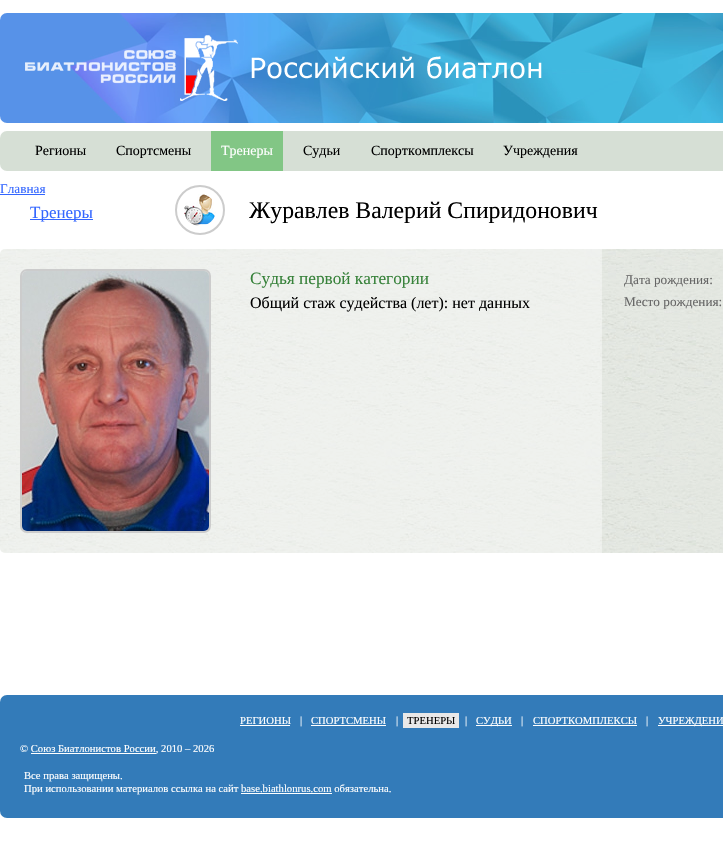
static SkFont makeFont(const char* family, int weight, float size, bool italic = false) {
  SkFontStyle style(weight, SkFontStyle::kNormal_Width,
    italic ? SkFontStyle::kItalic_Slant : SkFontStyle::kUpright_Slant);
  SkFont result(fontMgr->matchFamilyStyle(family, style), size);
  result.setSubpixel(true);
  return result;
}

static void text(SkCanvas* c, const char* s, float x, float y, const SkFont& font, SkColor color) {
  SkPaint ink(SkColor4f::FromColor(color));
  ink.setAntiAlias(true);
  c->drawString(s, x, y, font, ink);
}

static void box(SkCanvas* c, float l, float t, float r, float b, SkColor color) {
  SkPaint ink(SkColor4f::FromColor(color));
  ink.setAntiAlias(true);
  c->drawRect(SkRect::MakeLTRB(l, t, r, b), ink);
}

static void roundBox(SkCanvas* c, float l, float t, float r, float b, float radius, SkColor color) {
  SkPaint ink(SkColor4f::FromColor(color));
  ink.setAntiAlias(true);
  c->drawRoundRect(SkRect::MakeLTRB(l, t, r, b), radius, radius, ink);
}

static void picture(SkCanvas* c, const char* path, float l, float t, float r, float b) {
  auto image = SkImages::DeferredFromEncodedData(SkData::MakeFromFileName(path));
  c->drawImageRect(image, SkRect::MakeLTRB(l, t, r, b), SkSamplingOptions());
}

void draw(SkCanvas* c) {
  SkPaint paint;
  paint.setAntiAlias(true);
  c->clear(0xffffffff);
  picture(c, "img_01.png", 0, 13, 723, 123);
  picture(c, "img_02.png", 25, 35, 542, 101);
  roundBox(c, 0, 131, 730, 171, 7, 0xffd6dfd5);
  SkFont face1 = makeFont("Liberation Serif", 400, 14);
  text(c, "Регионы", 35, 155, face1, 0xff000000);
  text(c, "Спортсмены", 116, 155, face1, 0xff000000);
  box(c, 211, 131, 283, 171, 0xff82c685);
  text(c, "Тренеры", 221, 155, face1, 0xffffffff);
  text(c, "Судьи", 303, 155, face1, 0xff000000);
  text(c, "Спорткомплексы", 371, 155, face1, 0xff000000);
  text(c, "Учреждения", 503, 155, face1, 0xff000000);
  SkFont face2 = makeFont("Liberation Serif", 400, 13.25f);
  text(c, "Главная", 0, 193, face2, 0xff3366ff);
  box(c, 0, 194, 45, 195, 0xff3366ff);
  box(c, 30, 219, 93, 220, 0xff3366ff);
  SkFont face3 = makeFont("Liberation Serif", 400, 17);
  text(c, "Тренеры", 30, 218, face3, 0xff3366ff);
  paint.setStyle(SkPaint::kStroke_Style);
  paint.setStrokeWidth(2);
  paint.setColor(0xffcccccc);
  c->drawCircle(200, 210, 24, paint);
  picture(c, "img_03.png", 184, 194, 216, 226);
  SkFont face4 = makeFont("Liberation Serif", 400, 23.75f);
  text(c, "Журавлев Валерий Спиридонович", 249, 218, face4, 0xff000000);
  picture(c, "img_04.png", 0, 249, 723, 553);
  c->drawRoundRect(SkRect::MakeLTRB(21, 270, 210, 532), 6, 6, paint);
  picture(c, "img_05.png", 22, 271, 209, 531);
  SkFont face5 = makeFont("Liberation Serif", 400, 17.25f);
  text(c, "Судья первой категории", 250, 284, face5, 0xff37823a);
  SkFont face6 = makeFont("Liberation Serif", 400, 16);
  text(c, "Общий стаж судейства (лет): нет данных", 250, 308, face6, 0xff000000);
  text(c, "Дата рождения:", 624, 284, face2, 0xff666666);
  text(c, "Место рождения:", 624, 306, face2, 0xff666666);
  roundBox(c, 0, 695, 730, 818, 7, 0xff337bb9);
  SkFont face7 = makeFont("Liberation Serif", 400, 10.65f);
  text(c, "РЕГИОНЫ", 240, 724, face7, 0xffffffff);
  box(c, 240, 725, 290, 726, 0xffffffff);
  text(c, "|", 300, 724, face7, 0xffffffff);
  text(c, "СПОРТСМЕНЫ", 311, 724, face7, 0xffffffff);
  box(c, 311, 725, 386, 726, 0xffffffff);
  text(c, "|", 396, 724, face7, 0xffffffff);
  box(c, 403, 713, 459, 728, 0xffe9e8e8);
  text(c, "ТРЕНЕРЫ", 407, 724, face7, 0xff000000);
  text(c, "|", 465, 724, face7, 0xffffffff);
  box(c, 476, 725, 512, 726, 0xffffffff);
  text(c, "СУДЬИ", 476, 724, face7, 0xffffffff);
  text(c, "|", 521, 724, face7, 0xffffffff);
  text(c, "СПОРТКОМПЛЕКСЫ", 533, 724, face7, 0xffffffff);
  box(c, 533, 725, 637, 726, 0xffffffff);
  text(c, "|", 646, 724, face7, 0xffffffff);
  box(c, 658, 725, 723, 726, 0xffffffff);
  text(c, "УЧРЕЖДЕНИ", 658, 724, face7, 0xffffffff);
  text(c, "© Союз Биатлонистов России, 2010 – 2026", 20, 752, face7, 0xffffffff);
  box(c, 31, 753, 156, 754, 0xffffffff);
  text(c, "Все права защищены.", 24, 779, face7, 0xffffffff);
  text(c, "При использовании материалов ссылка на сайт base.biathlonrus.com обязательна.", 24, 792, face7, 0xffffffff);
  box(c, 241, 793, 332, 794, 0xffffffff);
}
